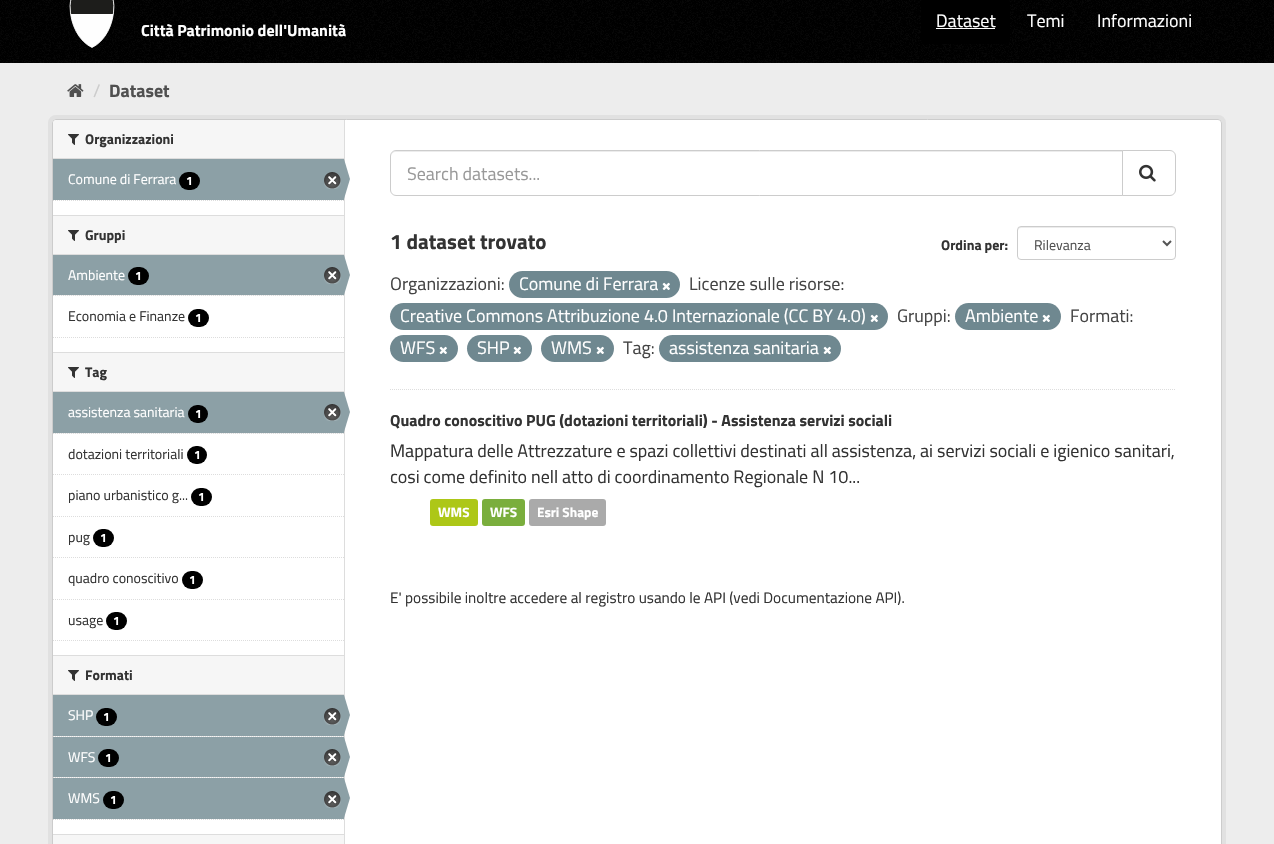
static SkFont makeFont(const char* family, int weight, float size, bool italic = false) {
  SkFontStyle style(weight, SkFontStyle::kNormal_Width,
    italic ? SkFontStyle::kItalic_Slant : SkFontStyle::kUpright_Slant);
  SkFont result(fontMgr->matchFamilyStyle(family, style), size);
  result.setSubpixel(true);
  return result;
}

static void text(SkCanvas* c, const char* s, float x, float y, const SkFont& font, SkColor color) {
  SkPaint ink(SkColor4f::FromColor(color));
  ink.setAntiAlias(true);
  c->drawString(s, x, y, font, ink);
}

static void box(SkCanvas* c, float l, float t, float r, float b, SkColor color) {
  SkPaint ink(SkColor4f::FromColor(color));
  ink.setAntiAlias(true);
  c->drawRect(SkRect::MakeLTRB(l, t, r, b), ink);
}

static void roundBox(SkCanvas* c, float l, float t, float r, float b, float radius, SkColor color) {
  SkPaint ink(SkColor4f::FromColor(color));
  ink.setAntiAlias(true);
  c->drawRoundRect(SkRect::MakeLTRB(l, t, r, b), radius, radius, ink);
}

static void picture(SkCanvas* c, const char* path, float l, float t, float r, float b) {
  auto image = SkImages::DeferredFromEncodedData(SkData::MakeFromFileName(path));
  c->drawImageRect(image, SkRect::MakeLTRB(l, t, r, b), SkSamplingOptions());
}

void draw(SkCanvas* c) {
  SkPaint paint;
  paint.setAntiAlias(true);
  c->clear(0xffededed);
  box(c, 0, 0, 1274, 63, 0xff000000);
  picture(c, "img_01.png", 0, 0, 1274, 63);
  roundBox(c, 921, -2, 1010, 44, 4, 0xff000000);
  SkFont face1 = makeFont("Titillium Web", 400, 18);
  text(c, "Dataset", 936, 27, face1, 0xffffffff);
  box(c, 936, 28, 995, 29, 0xffffffff);
  text(c, "Temi", 1027, 27, face1, 0xffffffff);
  text(c, "Informazioni", 1097, 27, face1, 0xffffffff);
  picture(c, "img_02.png", 69, 0, 115, 48);
  SkFont face2 = makeFont("Titillium Web", 700, 16);
  text(c, "Città Patrimonio dell'Umanità", 141, 36, face2, 0xffffffff);
  picture(c, "img_03.png", 67, 84, 84, 97);
  text(c, "/", 93, 97, face1, 0xffcccccc);
  SkFont face3 = makeFont("Titillium Web", 700, 18);
  text(c, "Dataset", 109, 97, face3, 0xff505050);
  paint.setStyle(SkPaint::kStroke_Style);
  paint.setStrokeWidth(4);
  paint.setColor(0xffe1e1e1);
  c->drawRoundRect(SkRect::MakeLTRB(50, 117, 1224, 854), 6, 6, paint);
  paint.setStyle(SkPaint::kFill_Style);
  paint.setColor(0xffffffff);
  c->drawRoundRect(SkRect::MakeLTRB(52.5f, 119.5f, 1221.5f, 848.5f), 3.5f, 3.5f, paint);
  paint.setStyle(SkPaint::kStroke_Style);
  paint.setStrokeWidth(1);
  paint.setColor(0xffcccccc);
  c->drawRoundRect(SkRect::MakeLTRB(52.5f, 119.5f, 1221.5f, 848.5f), 3.5f, 3.5f, paint);
  paint.setStyle(SkPaint::kFill_Style);
  paint.setColor(0xfff6f6f6);
  c->drawPath(SkPathBuilder().moveTo(56, 120).lineTo(344, 120).lineTo(344, 159).lineTo(53, 159).lineTo(53, 123).cubicTo(53, 121.5f, 54.5f, 120, 56, 120).close().detach(), paint);
  box(c, 53, 158, 344, 159, 0xffdddddd);
  picture(c, "img_04.png", 68, 134, 79, 145);
  SkFont face4 = makeFont("Titillium Web", 700, 14);
  text(c, "Organizzazioni", 85, 144, face4, 0xff333333);
  box(c, 53, 159, 344, 200, 0xff8ca0a6);
  SkFont face5 = makeFont("Titillium Web", 400, 14);
  text(c, "Comune di Ferrara", 68, 184, face5, 0xffffffff);
  roundBox(c, 179, 172, 200, 190, 9, 0xff000000);
  SkFont face6 = makeFont("Titillium Web", 700, 12);
  text(c, "1", 186, 185, face6, 0xffffffff);
  picture(c, "img_05.png", 324, 172, 341, 189);
  box(c, 344, 120, 345, 844, 0xffdddddd);
  paint.setColor(0xff8ca0a6);
  c->drawPath(SkPathBuilder().moveTo(344, 199).lineTo(344, 159).lineTo(350, 179).close().detach(), paint);
  paint.setStyle(SkPaint::kStroke_Style);
  paint.setColor(0xffdddddd);
  paint.setPathEffect(SkDashPathEffect::Make({{1, 1}}, 0));
  c->drawPath(SkPathBuilder().moveTo(53, 200.5f).lineTo(344, 200.5f).detach(), paint);
  paint.setPathEffect(nullptr);
  box(c, 53, 216, 344, 254, 0xfff6f6f6);
  box(c, 53, 215, 344, 216, 0xffdddddd);
  box(c, 53, 254, 344, 255, 0xffdddddd);
  picture(c, "img_04.png", 68, 230, 79, 241);
  text(c, "Gruppi", 85, 240, face4, 0xff333333);
  box(c, 54, 295, 343, 296, 0xfff6f6f6);
  paint.setPathEffect(SkDashPathEffect::Make({{1, 1}}, 0));
  c->drawPath(SkPathBuilder().moveTo(53, 295.5f).lineTo(344, 295.5f).detach(), paint);
  paint.setPathEffect(nullptr);
  box(c, 53, 255, 344, 295, 0xff8ca0a6);
  text(c, "Ambiente", 68, 280, face5, 0xffffffff);
  roundBox(c, 128, 267, 149, 285, 9, 0xff000000);
  text(c, "1", 135, 280, face6, 0xffffffff);
  picture(c, "img_05.png", 324, 267, 341, 284);
  paint.setStyle(SkPaint::kFill_Style);
  paint.setColor(0xff8ca0a6);
  c->drawPath(SkPathBuilder().moveTo(344, 295).lineTo(344, 255).lineTo(350, 275).close().detach(), paint);
  text(c, "Economia e Finanze", 68, 321, face5, 0xff333333);
  roundBox(c, 188, 309, 209, 327, 9, 0xff000000);
  text(c, "1", 195, 322, face6, 0xffffffff);
  paint.setStyle(SkPaint::kStroke_Style);
  paint.setColor(0xffdddddd);
  paint.setPathEffect(SkDashPathEffect::Make({{1, 1}}, 0));
  c->drawPath(SkPathBuilder().moveTo(53, 337.5f).lineTo(344, 337.5f).detach(), paint);
  paint.setPathEffect(nullptr);
  box(c, 53, 353, 344, 391, 0xfff6f6f6);
  box(c, 53, 352, 344, 353, 0xffdddddd);
  box(c, 53, 391, 344, 392, 0xffdddddd);
  picture(c, "img_04.png", 68, 367, 79, 378);
  text(c, "Tag", 85, 377, face4, 0xff333333);
  box(c, 54, 433, 343, 434, 0xfff6f6f6);
  paint.setPathEffect(SkDashPathEffect::Make({{1, 1}}, 0));
  c->drawPath(SkPathBuilder().moveTo(53, 433.5f).lineTo(344, 433.5f).detach(), paint);
  paint.setPathEffect(nullptr);
  box(c, 53, 392, 344, 433, 0xff8ca0a6);
  text(c, "assistenza sanitaria", 68, 417, face5, 0xffffffff);
  roundBox(c, 188, 405, 208, 423, 9, 0xff000000);
  text(c, "1", 195, 418, face6, 0xffffffff);
  picture(c, "img_05.png", 324, 404, 341, 421);
  paint.setStyle(SkPaint::kFill_Style);
  paint.setColor(0xff8ca0a6);
  c->drawPath(SkPathBuilder().moveTo(344, 432).lineTo(344, 392).lineTo(350, 412).close().detach(), paint);
  paint.setStyle(SkPaint::kStroke_Style);
  paint.setColor(0xffdddddd);
  paint.setPathEffect(SkDashPathEffect::Make({{1, 1}}, 0));
  c->drawPath(SkPathBuilder().moveTo(53, 474.5f).lineTo(344, 474.5f).detach(), paint);
  paint.setPathEffect(nullptr);
  text(c, "dotazioni territoriali", 68, 459, face5, 0xff333333);
  roundBox(c, 187, 446, 207, 464, 9, 0xff000000);
  text(c, "1", 194, 459, face6, 0xffffffff);
  paint.setPathEffect(SkDashPathEffect::Make({{1, 1}}, 0));
  c->drawPath(SkPathBuilder().moveTo(53, 516.5f).lineTo(344, 516.5f).detach(), paint);
  paint.setPathEffect(nullptr);
  text(c, "piano urbanistico g...", 68, 500, face5, 0xff333333);
  roundBox(c, 191, 488, 212, 506, 9, 0xff000000);
  text(c, "1", 198, 501, face6, 0xffffffff);
  paint.setPathEffect(SkDashPathEffect::Make({{1, 1}}, 0));
  c->drawPath(SkPathBuilder().moveTo(53, 557.5f).lineTo(344, 557.5f).detach(), paint);
  paint.setPathEffect(nullptr);
  text(c, "pug", 68, 542, face5, 0xff333333);
  roundBox(c, 93, 529, 114, 547, 9, 0xff000000);
  text(c, "1", 100, 542, face6, 0xffffffff);
  paint.setPathEffect(SkDashPathEffect::Make({{1, 1}}, 0));
  c->drawPath(SkPathBuilder().moveTo(53, 599.5f).lineTo(344, 599.5f).detach(), paint);
  paint.setPathEffect(nullptr);
  text(c, "quadro conoscitivo", 68, 583, face5, 0xff333333);
  roundBox(c, 182, 571, 203, 589, 9, 0xff000000);
  text(c, "1", 189, 584, face6, 0xffffffff);
  text(c, "usage", 68, 625, face5, 0xff333333);
  roundBox(c, 106, 612, 127, 630, 9, 0xff000000);
  text(c, "1", 113, 625, face6, 0xffffffff);
  paint.setPathEffect(SkDashPathEffect::Make({{1, 1}}, 0));
  c->drawPath(SkPathBuilder().moveTo(53, 640.5f).lineTo(344, 640.5f).detach(), paint);
  paint.setPathEffect(nullptr);
  box(c, 53, 656, 344, 694, 0xfff6f6f6);
  box(c, 53, 655, 344, 656, 0xffdddddd);
  box(c, 53, 694, 344, 695, 0xffdddddd);
  picture(c, "img_04.png", 68, 670, 79, 681);
  text(c, "Formati", 85, 680, face4, 0xff333333);
  box(c, 54, 736, 343, 737, 0xfff6f6f6);
  paint.setPathEffect(SkDashPathEffect::Make({{1, 1}}, 0));
  c->drawPath(SkPathBuilder().moveTo(53, 736.5f).lineTo(344, 736.5f).detach(), paint);
  paint.setPathEffect(nullptr);
  box(c, 53, 695, 344, 736, 0xff8ca0a6);
  text(c, "SHP", 68, 720, face5, 0xffffffff);
  roundBox(c, 96, 708, 117, 726, 9, 0xff000000);
  text(c, "1", 103, 721, face6, 0xffffffff);
  picture(c, "img_05.png", 324, 708, 341, 725);
  paint.setStyle(SkPaint::kFill_Style);
  paint.setColor(0xff8ca0a6);
  c->drawPath(SkPathBuilder().moveTo(344, 735).lineTo(344, 695).lineTo(350, 715).close().detach(), paint);
  box(c, 54, 777, 343, 778, 0xfff6f6f6);
  paint.setStyle(SkPaint::kStroke_Style);
  paint.setColor(0xffdddddd);
  paint.setPathEffect(SkDashPathEffect::Make({{1, 1}}, 0));
  c->drawPath(SkPathBuilder().moveTo(53, 777.5f).lineTo(344, 777.5f).detach(), paint);
  paint.setPathEffect(nullptr);
  box(c, 53, 737, 344, 777, 0xff8ca0a6);
  text(c, "WFS", 68, 762, face5, 0xffffffff);
  roundBox(c, 98, 749, 119, 767, 9, 0xff000000);
  text(c, "1", 105, 762, face6, 0xffffffff);
  picture(c, "img_05.png", 324, 749, 341, 766);
  paint.setStyle(SkPaint::kFill_Style);
  paint.setColor(0xff8ca0a6);
  c->drawPath(SkPathBuilder().moveTo(344, 777).lineTo(344, 737).lineTo(350, 757).close().detach(), paint);
  box(c, 53, 778, 344, 819, 0xff8ca0a6);
  text(c, "WMS", 68, 803, face5, 0xffffffff);
  roundBox(c, 103, 791, 124, 809, 9, 0xff000000);
  text(c, "1", 110, 804, face6, 0xffffffff);
  picture(c, "img_05.png", 324, 791, 341, 808);
  c->drawPath(SkPathBuilder().moveTo(344, 818).lineTo(344, 778).lineTo(350, 798).close().detach(), paint);
  paint.setStyle(SkPaint::kStroke_Style);
  paint.setColor(0xffdddddd);
  paint.setPathEffect(SkDashPathEffect::Make({{1, 1}}, 0));
  c->drawPath(SkPathBuilder().moveTo(53, 819.5f).lineTo(344, 819.5f).detach(), paint);
  paint.setPathEffect(nullptr);
  box(c, 53, 835, 344, 844, 0xfff6f6f6);
  box(c, 53, 834, 344, 835, 0xffdddddd);
  paint.setPathEffect(SkDashPathEffect::Make({{1, 1}}, 0));
  c->drawPath(SkPathBuilder().moveTo(390, 389.5f).lineTo(1176, 389.5f).detach(), paint);
  paint.setPathEffect(nullptr);
  paint.setStyle(SkPaint::kFill_Style);
  paint.setColor(0xffececec);
  c->drawPath(SkPathBuilder().moveTo(396, 152).lineTo(1122, 152).lineTo(1122, 151).lineTo(396, 151).cubicTo(393, 151, 391, 154, 391, 157).cubicTo(391, 154, 393, 152, 396, 152).close().detach(), paint);
  paint.setStyle(SkPaint::kStroke_Style);
  paint.setColor(0xffcccccc);
  c->drawPath(SkPathBuilder().moveTo(396, 150.5f).lineTo(1122.5f, 150.5f).lineTo(1122.5f, 195.5f).lineTo(396, 195.5f).cubicTo(393, 195.5f, 390.5f, 193, 390.5f, 190).lineTo(390.5f, 156).cubicTo(390.5f, 153, 393, 150.5f, 396, 150.5f).close().detach(), paint);
  text(c, "Search datasets...", 407, 180, face1, 0xff999999);
  paint.setStyle(SkPaint::kFill_Style);
  paint.setColor(0xffffffff);
  c->drawPath(SkPathBuilder().moveTo(1122.5f, 150.5f).lineTo(1170, 150.5f).cubicTo(1173, 150.5f, 1175.5f, 153, 1175.5f, 156).lineTo(1175.5f, 190).cubicTo(1175.5f, 193, 1173, 195.5f, 1170, 195.5f).lineTo(1122.5f, 195.5f).close().detach(), paint);
  paint.setStyle(SkPaint::kStroke_Style);
  paint.setColor(0xffcccccc);
  c->drawPath(SkPathBuilder().moveTo(1122.5f, 150.5f).lineTo(1170, 150.5f).cubicTo(1173, 150.5f, 1175.5f, 153, 1175.5f, 156).lineTo(1175.5f, 190).cubicTo(1175.5f, 193, 1173, 195.5f, 1170, 195.5f).lineTo(1122.5f, 195.5f).close().detach(), paint);
  picture(c, "img_06.png", 1139, 164, 1156, 182);
  SkFont face7 = makeFont("Titillium Web", 700, 21);
  text(c, "1 dataset trovato", 390, 249, face7, 0xff333333);
  text(c, "Ordina per:", 941, 250, face4, 0xff333333);
  paint.setStyle(SkPaint::kFill_Style);
  paint.setColor(0xffececec);
  c->drawPath(SkPathBuilder().moveTo(1021, 228).lineTo(1172, 228).cubicTo(1174, 228, 1175, 229, 1175, 231).cubicTo(1175, 229, 1174, 227, 1172, 227).lineTo(1020, 227).cubicTo(1018, 227, 1018, 229, 1018, 231).cubicTo(1018, 229, 1019, 228, 1021, 228).close().detach(), paint);
  paint.setStyle(SkPaint::kStroke_Style);
  paint.setColor(0xffcccccc);
  c->drawRoundRect(SkRect::MakeLTRB(1017.5f, 226.5f, 1175.5f, 259.5f), 3.5f, 3.5f, paint);
  paint.setStrokeWidth(2);
  paint.setColor(0xff555555);
  c->drawPath(SkPathBuilder().moveTo(1163, 241).lineTo(1167, 245).lineTo(1171, 241).detach(), paint);
  text(c, "Rilevanza", 1034, 250, face5, 0xff505050);
  text(c, "Organizzazioni:", 390, 290, face1, 0xff444444);
  roundBox(c, 509, 271, 680, 298, 13.5f, 0xff6f8890);
  text(c, "Comune di Ferrara", 519, 290, face1, 0xffffffff);
  picture(c, "img_07.png", 662, 282, 670, 290);
  text(c, "Licenze sulle risorse:", 689, 290, face1, 0xff444444);
  roundBox(c, 390, 303, 888, 330, 13.5f, 0xff6f8890);
  text(c, "Creative Commons Attribuzione 4.0 Internazionale (CC BY 4.0)", 400, 322, face1, 0xffffffff);
  picture(c, "img_07.png", 870, 314, 878, 322);
  text(c, "Gruppi:", 897, 322, face1, 0xff444444);
  roundBox(c, 955, 303, 1061, 330, 13.5f, 0xff6f8890);
  text(c, "Ambiente", 965, 322, face1, 0xffffffff);
  picture(c, "img_07.png", 1042, 314, 1050, 322);
  text(c, "Formati:", 1070, 322, face1, 0xff444444);
  roundBox(c, 390, 335, 458, 362, 13.5f, 0xff6f8890);
  text(c, "WFS", 400, 354, face1, 0xffffffff);
  picture(c, "img_07.png", 439, 346, 447, 354);
  roundBox(c, 467, 335, 532, 362, 13.5f, 0xff6f8890);
  text(c, "SHP", 477, 354, face1, 0xffffffff);
  picture(c, "img_07.png", 513, 346, 521, 354);
  roundBox(c, 541, 335, 614, 362, 13.5f, 0xff6f8890);
  text(c, "WMS", 551, 354, face1, 0xffffffff);
  picture(c, "img_07.png", 596, 346, 604, 354);
  text(c, "Tag:", 623, 354, face1, 0xff444444);
  roundBox(c, 659, 335, 841, 362, 13.5f, 0xff6f8890);
  text(c, "assistenza sanitaria", 669, 354, face1, 0xffffffff);
  picture(c, "img_07.png", 823, 346, 831, 354);
  text(c, "Quadro conoscitivo PUG (dotazioni territoriali) - Assistenza servizi sociali", 390, 426, face2, 0xff333333);
  text(c, "Mappatura delle Attrezzature e spazi collettivi destinati all assistenza, ai servizi sociali e igienico sanitari,", 390, 457, face1, 0xff333333);
  text(c, "cosi come definito nell atto di coordinamento Regionale N 10...", 390, 483, face1, 0xff333333);
  roundBox(c, 430, 499, 478, 526, 3, 0xffadc717);
  SkFont face8 = makeFont("Titillium Web", 700, 13.5f);
  text(c, "WMS", 438, 517, face8, 0xffffffff);
  roundBox(c, 482, 499, 525, 526, 3, 0xff7aae3d);
  text(c, "WFS", 490, 517, face8, 0xffffffff);
  roundBox(c, 529, 499, 606, 526, 3, 0xffaaaaaa);
  text(c, "Esri Shape", 537, 517, face8, 0xffffffff);
  SkFont face9 = makeFont("Titillium Web", 400, 15.3f);
  text(c, "E' possibile inoltre accedere al registro usando le API (vedi Documentazione API).", 390, 603, face9, 0xff333333);
}
